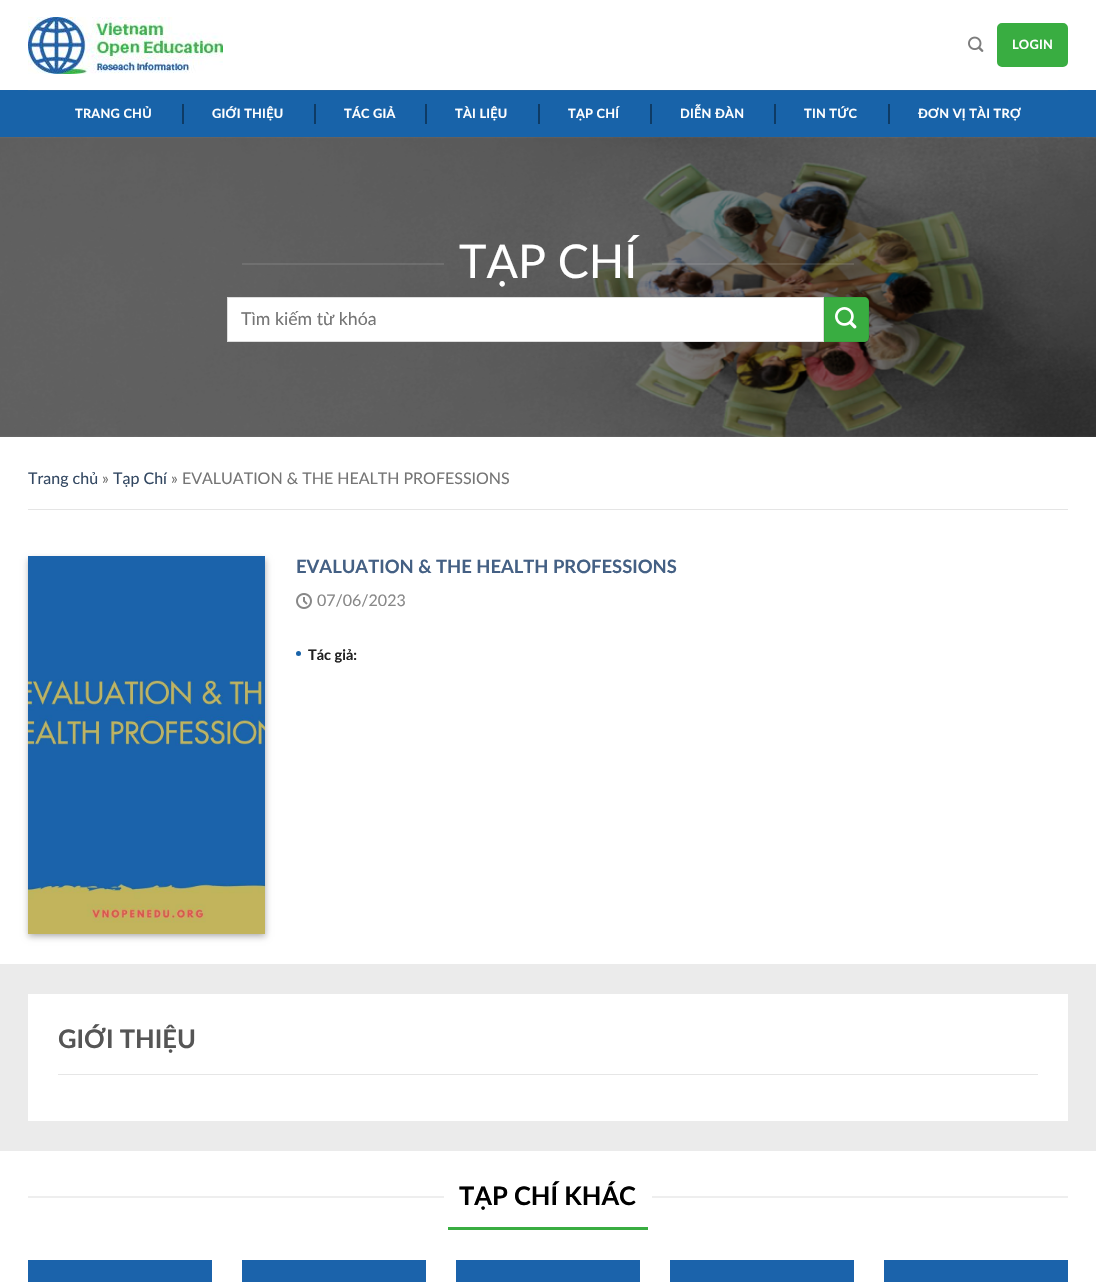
static SkFont makeFont(const char* family, int weight, float size, bool italic = false) {
  SkFontStyle style(weight, SkFontStyle::kNormal_Width,
    italic ? SkFontStyle::kItalic_Slant : SkFontStyle::kUpright_Slant);
  SkFont result(fontMgr->matchFamilyStyle(family, style), size);
  result.setSubpixel(true);
  return result;
}

static void text(SkCanvas* c, const char* s, float x, float y, const SkFont& font, SkColor color) {
  SkPaint ink(SkColor4f::FromColor(color));
  ink.setAntiAlias(true);
  c->drawString(s, x, y, font, ink);
}

static void spacedText(SkCanvas* c, const char* s, float x, float y, const SkFont& font, const SkPaint& ink, float letter, float word) {
  std::vector<SkGlyphID> glyphs(font.countText(s, strlen(s), SkTextEncoding::kUTF8));
  std::vector<float> xs(glyphs.size());
  font.textToGlyphs(s, strlen(s), SkTextEncoding::kUTF8, glyphs);
  font.getXPos(glyphs, xs, x);
  float extra = 0;
  for (size_t i = 0; i < glyphs.size(); i++) {
    xs[i] += extra;
    extra += letter + word * (glyphs[i] == font.unicharToGlyph(' '));
  }
  c->drawTextBlob(SkTextBlob::MakeFromPosHGlyphs(glyphs, xs, y, font), 0, 0, ink);
}

static void box(SkCanvas* c, float l, float t, float r, float b, SkColor color) {
  SkPaint ink(SkColor4f::FromColor(color));
  ink.setAntiAlias(true);
  c->drawRect(SkRect::MakeLTRB(l, t, r, b), ink);
}

static void picture(SkCanvas* c, const char* path, float l, float t, float r, float b) {
  auto image = SkImages::DeferredFromEncodedData(SkData::MakeFromFileName(path));
  c->drawImageRect(image, SkRect::MakeLTRB(l, t, r, b), SkSamplingOptions());
}

void draw(SkCanvas* c) {
  SkPaint paint;
  paint.setAntiAlias(true);
  c->clear(0xffffffff);
  picture(c, "img_01.png", 28, 17, 223, 74);
  picture(c, "img_02.png", 968, 36, 984, 52);
  paint.setColor(0xff39ad41);
  c->drawRoundRect(SkRect::MakeLTRB(998, 24, 1067, 66), 4, 4, paint);
  paint.setStyle(SkPaint::kStroke_Style);
  paint.setStrokeWidth(2);
  c->drawRoundRect(SkRect::MakeLTRB(998, 24, 1067, 66), 4, 4, paint);
  SkFont face1 = makeFont("Lato", 700, 12.75f);
  paint.setStyle(SkPaint::kFill_Style);
  paint.setColor(0xffffffff);
  spacedText(c, "LOGIN", 1012, 49, face1, paint, 0.25f, 0);
  box(c, 0, 90, 1096, 137, 0xff1863a9);
  box(c, 28, 90, 1068, 91, 0xff2265a4);
  spacedText(c, "TRANG CHỦ", 75, 118, face1, paint, 0.25f, 0);
  box(c, 182, 104, 184, 124, 0xff0e3b65);
  spacedText(c, "GIỚI THIỆU", 212, 118, face1, paint, 0.25f, 0);
  box(c, 314, 104, 316, 124, 0xff0e3b65);
  spacedText(c, "TÁC GIẢ", 344, 118, face1, paint, 0.25f, 0);
  box(c, 425, 104, 427, 124, 0xff0e3b65);
  spacedText(c, "TÀI LIỆU", 455, 118, face1, paint, 0.25f, 0);
  box(c, 538, 104, 540, 124, 0xff0e3b65);
  spacedText(c, "TẠP CHÍ", 568, 118, face1, paint, 0.25f, 0);
  box(c, 650, 104, 652, 124, 0xff0e3b65);
  spacedText(c, "DIỄN ĐÀN", 680, 118, face1, paint, 0.25f, 0);
  box(c, 774, 104, 776, 124, 0xff0e3b65);
  spacedText(c, "TIN TỨC", 804, 118, face1, paint, 0.25f, 0);
  box(c, 888, 104, 890, 124, 0xff0e3b65);
  spacedText(c, "ĐƠN VỊ TÀI TRỢ", 918, 118, face1, paint, 0.25f, 0);
  picture(c, "img_03.png", 0, 137, 1096, 437);
  box(c, 242, 263, 444, 265, 0x1affffff);
  SkFont face2 = makeFont("Lato", 400, 46.5f);
  text(c, "TẠP CHÍ", 459, 278, face2, 0xffffffff);
  box(c, 652, 263, 854, 265, 0x1affffff);
  c->drawRect(SkRect::MakeLTRB(227.5f, 297.5f, 823.5f, 341.5f), paint);
  paint.setStyle(SkPaint::kStroke_Style);
  paint.setStrokeWidth(1);
  paint.setColor(0xffdddddd);
  c->drawRect(SkRect::MakeLTRB(227.5f, 297.5f, 823.5f, 341.5f), paint);
  SkFont face3 = makeFont("Lato", 400, 17.75f);
  text(c, "Tìm kiếm từ khóa", 241, 325, face3, 0xff757575);
  paint.setStyle(SkPaint::kFill_Style);
  paint.setColor(0xff39ad41);
  c->drawPath(SkPathBuilder().moveTo(824, 297).lineTo(864, 297).cubicTo(867, 297, 869, 299, 869, 302).lineTo(869, 337).cubicTo(869, 340, 867, 342, 864, 342).lineTo(824, 342).close().detach(), paint);
  paint.setStyle(SkPaint::kStroke_Style);
  paint.setColor(0x0d000000);
  c->drawRect(SkRect::MakeLTRB(824.5f, 297.5f, 868.5f, 341.5f), paint);
  picture(c, "img_04.png", 835, 307, 857, 329);
  SkFont face4 = makeFont("Lato", 400, 16);
  text(c, "Trang chủ", 28, 484, face4, 0xff334862);
  text(c, "»", 102, 484, face4, 0xff757575);
  text(c, "Tạp Chí", 113, 484, face4, 0xff334862);
  text(c, "» EVALUATION & THE HEALTH PROFESSIONS", 171, 484, face4, 0xff757575);
  box(c, 28, 509, 1068, 510, 0xffe5e5e5);
  paint.setStyle(SkPaint::kFill_Style);
  paint.setColor(0x3b000000);
  paint.setMaskFilter(SkMaskFilter::MakeBlur(kNormal_SkBlurStyle, 3));
  c->drawRect(SkRect::MakeLTRB(28, 559, 266, 937), paint);
  paint.setMaskFilter(nullptr);
  paint.setColor(0x29000000);
  paint.setMaskFilter(SkMaskFilter::MakeBlur(kNormal_SkBlurStyle, 3));
  c->drawRect(SkRect::MakeLTRB(32, 563, 262, 933), paint);
  paint.setMaskFilter(nullptr);
  picture(c, "img_05.png", 28, 556, 265, 934);
  SkFont face5 = makeFont("Lato", 700, 18.4f);
  text(c, "EVALUATION & THE HEALTH PROFESSIONS", 296, 573, face5, 0xff446084);
  picture(c, "img_06.png", 296, 593, 312, 609);
  text(c, "07/06/2023", 317, 606, face4, 0xff888888);
  paint.setColor(0xff1863a9);
  c->drawCircle(298.5f, 653.5f, 2.5f, paint);
  SkFont face6 = makeFont("Lato", 700, 14.5f);
  text(c, "Tác giả:", 308, 660, face6, 0xff222222);
  box(c, 0, 964, 1096, 1151, 0xffebebeb);
  box(c, 28, 994, 1068, 1121, 0xffffffff);
  SkFont face7 = makeFont("Lato", 700, 25.5f);
  text(c, "GIỚI THIỆU", 58, 1048, face7, 0xff555555);
  box(c, 58, 1074, 1038, 1075, 0xffe6e6e6);
  box(c, 28, 1196, 444, 1198, 0xffeeeeee);
  text(c, "TẠP CHÍ KHÁC", 459, 1205, face7, 0xff000000);
  box(c, 652, 1196, 1068, 1198, 0xffeeeeee);
  box(c, 448, 1227, 648, 1230, 0xff39ad41);
  box(c, 28, 1260, 212, 1282, 0xff1b63ab);
  box(c, 242, 1260, 426, 1282, 0xff1b63ab);
  box(c, 456, 1260, 640, 1282, 0xff1b63ab);
  box(c, 670, 1260, 854, 1282, 0xff1b63ab);
  box(c, 884, 1260, 1068, 1282, 0xff1b63ab);
}
